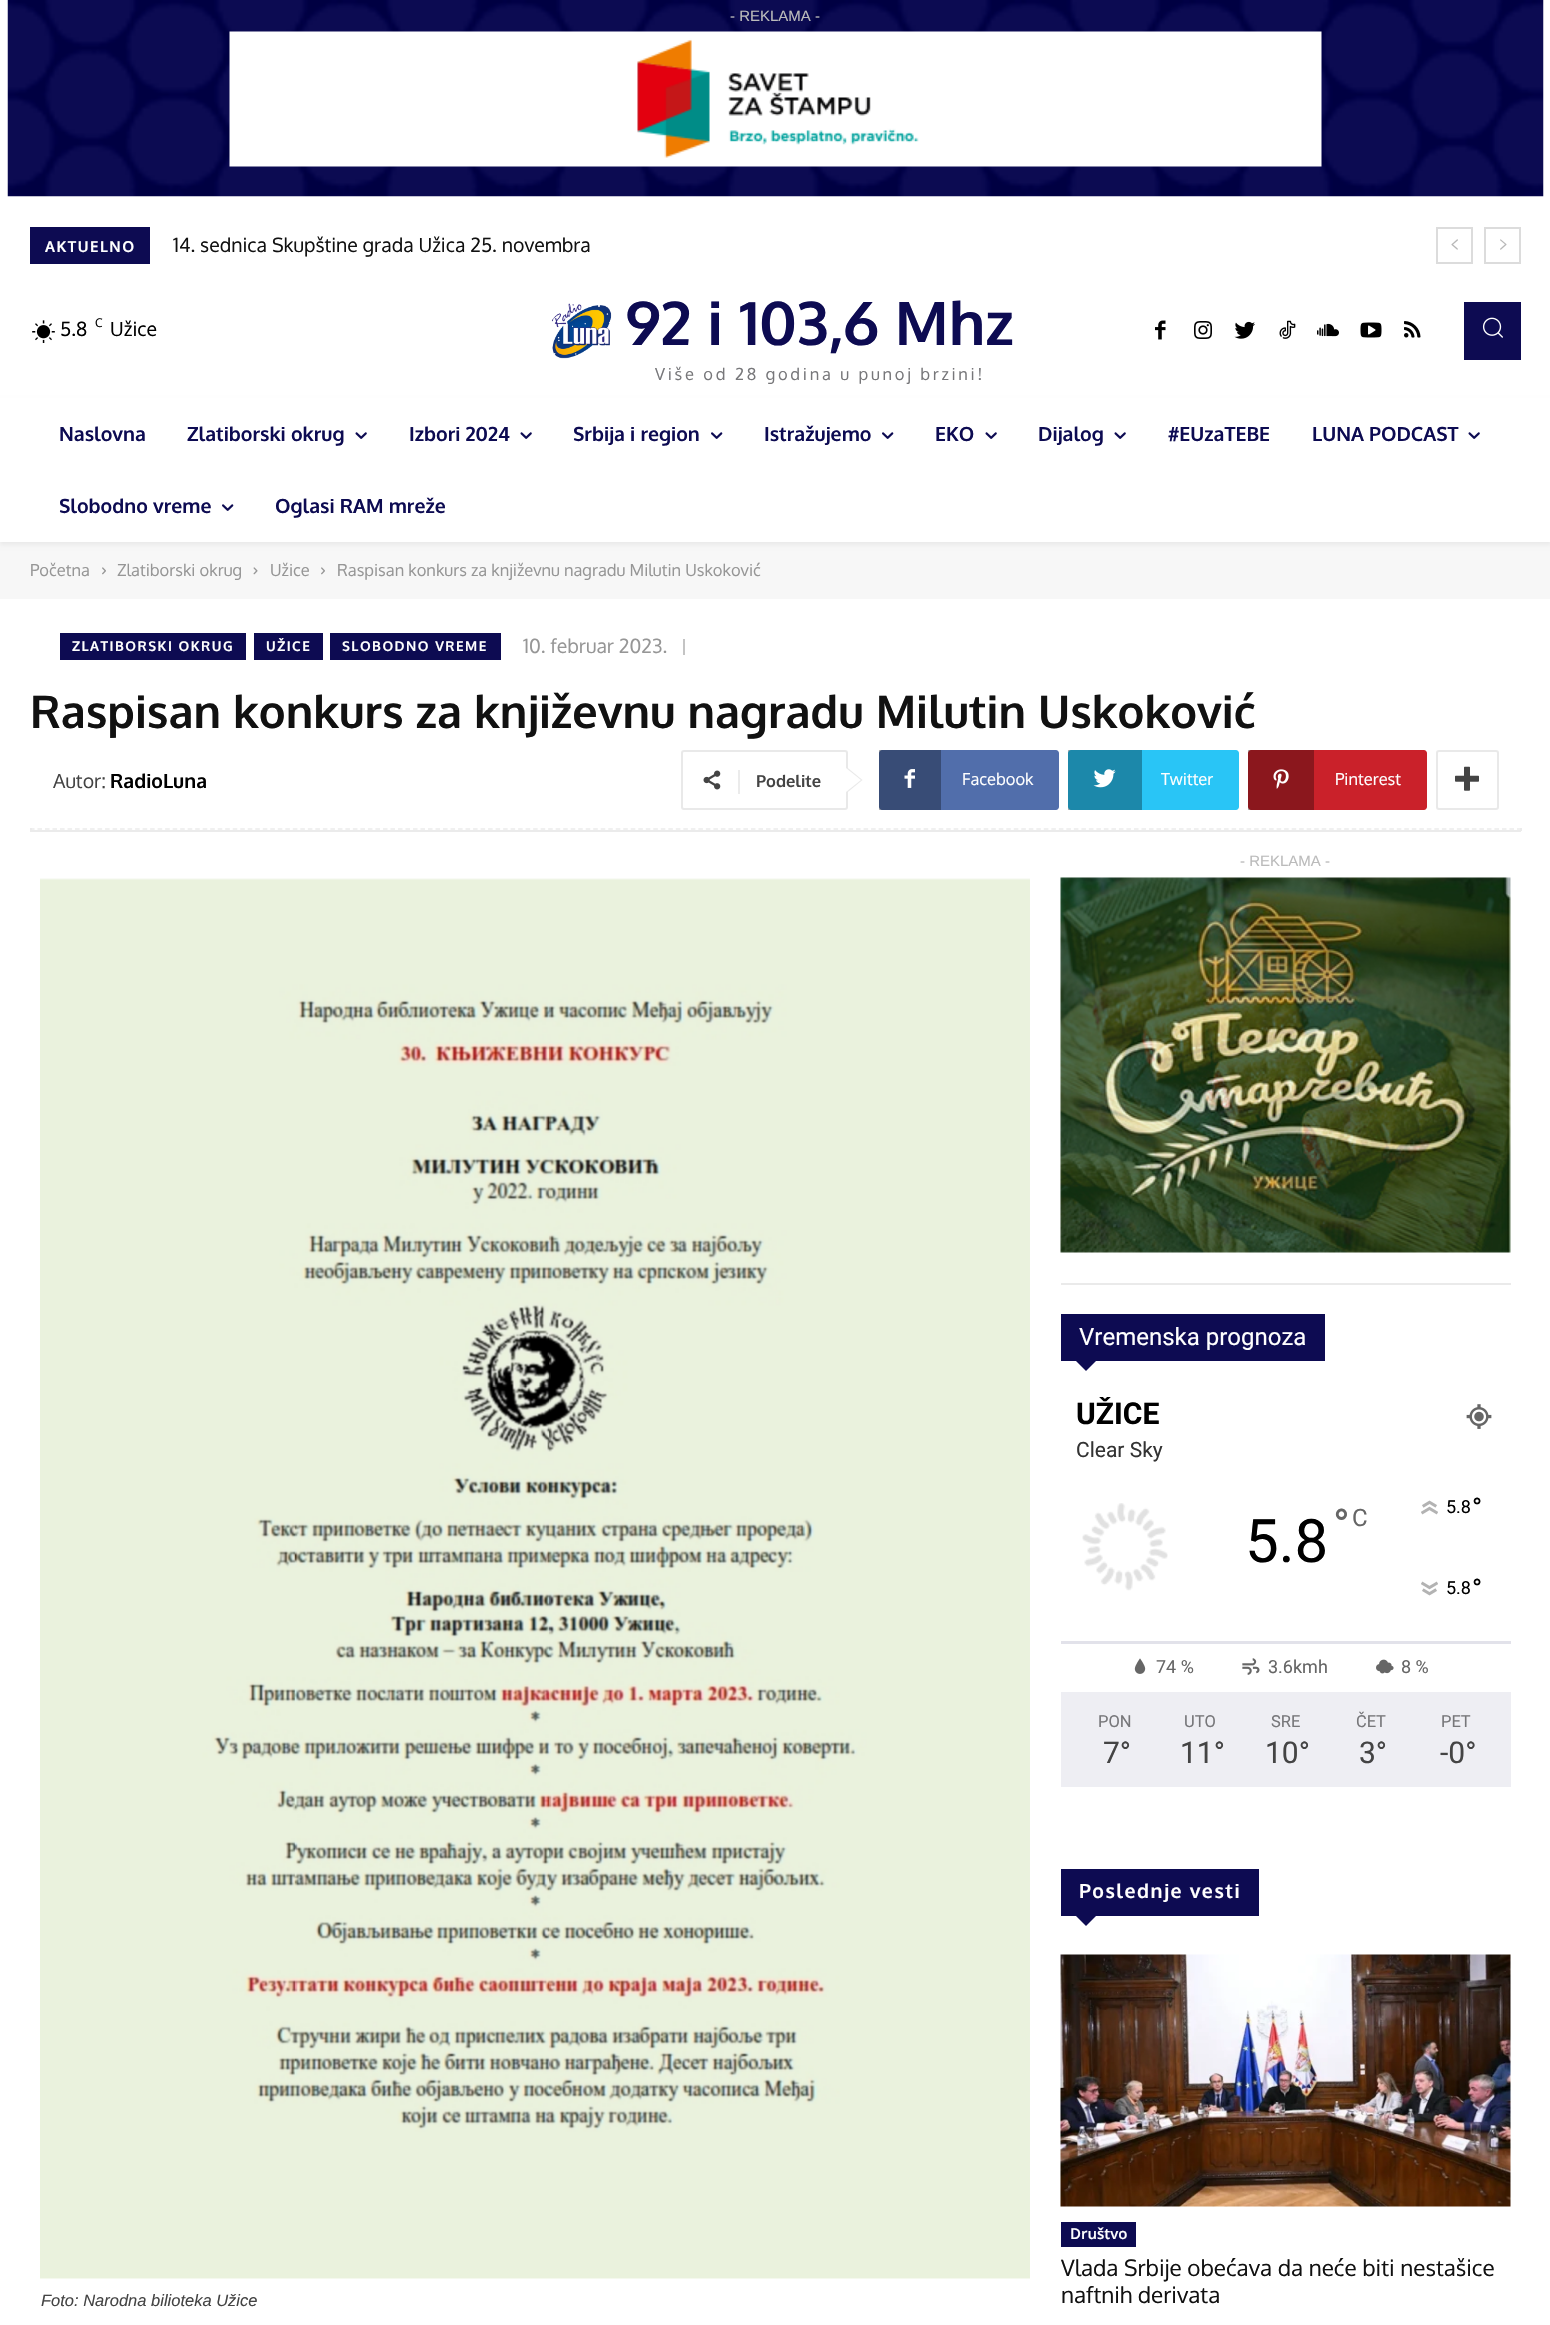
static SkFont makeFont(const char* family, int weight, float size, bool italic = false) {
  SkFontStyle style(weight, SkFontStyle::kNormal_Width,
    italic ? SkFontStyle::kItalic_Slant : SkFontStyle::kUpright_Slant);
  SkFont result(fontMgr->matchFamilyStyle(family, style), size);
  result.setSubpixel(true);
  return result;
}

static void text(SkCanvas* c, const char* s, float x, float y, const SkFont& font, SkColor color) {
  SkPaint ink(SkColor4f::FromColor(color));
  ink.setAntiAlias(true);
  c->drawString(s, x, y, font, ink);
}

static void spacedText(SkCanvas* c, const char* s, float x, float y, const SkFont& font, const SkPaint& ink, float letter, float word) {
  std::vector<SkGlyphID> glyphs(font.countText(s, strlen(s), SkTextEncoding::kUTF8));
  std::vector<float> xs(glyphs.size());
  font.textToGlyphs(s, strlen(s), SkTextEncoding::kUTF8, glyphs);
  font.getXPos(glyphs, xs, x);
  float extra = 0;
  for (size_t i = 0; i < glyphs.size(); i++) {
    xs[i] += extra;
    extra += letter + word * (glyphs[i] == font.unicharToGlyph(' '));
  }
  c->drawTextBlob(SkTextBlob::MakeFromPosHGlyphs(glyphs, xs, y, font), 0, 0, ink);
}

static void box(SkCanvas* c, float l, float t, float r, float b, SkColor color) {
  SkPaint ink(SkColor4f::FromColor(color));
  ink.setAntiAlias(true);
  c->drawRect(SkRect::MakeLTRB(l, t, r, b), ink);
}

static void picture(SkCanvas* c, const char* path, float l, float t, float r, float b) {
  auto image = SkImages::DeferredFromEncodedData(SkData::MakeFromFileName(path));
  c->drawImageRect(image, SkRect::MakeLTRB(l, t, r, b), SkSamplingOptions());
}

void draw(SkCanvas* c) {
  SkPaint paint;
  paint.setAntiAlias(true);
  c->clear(0xffffffff);
  box(c, 1248, 750, 1251, 810, 0xffb0b0b0);
  box(c, 1068, 750, 1071, 810, 0xffb0b0b0);
  box(c, 879, 750, 882, 810, 0xffb0b0b0);
  picture(c, "img_01.png", 7, 0, 1544, 197);
  SkFont face1 = makeFont("Liberation Sans", 400, 15);
  text(c, "- REKLAMA -", 730, 21, face1, 0xffbbbbbb);
  picture(c, "img_02.png", 229, 31, 1322, 167);
  box(c, 30, 227, 150, 264, 0xff0d0b52);
  SkFont face2 = makeFont("Oxygen", 700, 15);
  paint.setColor(0xffffffff);
  spacedText(c, "AKTUELNO", 45, 252, face2, paint, 1.5f, 0);
  SkFont face3 = makeFont("Oxygen", 400, 19.5f);
  text(c, "14. sednica Skupštine grada Užica 25. novembra", 173, 252, face3, 0xff111111);
  paint.setStyle(SkPaint::kStroke_Style);
  paint.setStrokeWidth(2);
  paint.setColor(0xffdcdcdc);
  c->drawRect(SkRect::MakeLTRB(1437, 228, 1472, 263), paint);
  picture(c, "img_03.png", 1451, 239, 1458, 250);
  c->drawRect(SkRect::MakeLTRB(1485, 228, 1520, 263), paint);
  picture(c, "img_04.png", 1500, 239, 1507, 250);
  picture(c, "img_05.png", 32, 320, 55, 343);
  text(c, "5.8", 60, 336, face3, 0xff000000);
  SkFont face4 = makeFont("Oxygen", 400, 12);
  text(c, "C", 95, 327, face4, 0xff000000);
  text(c, "Užice", 110, 336, face3, 0xff000000);
  picture(c, "img_06.png", 551, 303, 612, 359);
  SkFont face5 = makeFont("Oxygen", 700, 60);
  text(c, "92 i 103,6 Mhz", 625, 345, face5, 0xff0d0b52);
  SkFont face6 = makeFont("Oxygen", 400, 16.5f);
  paint.setStyle(SkPaint::kFill_Style);
  paint.setColor(0xff77777a);
  spacedText(c, "Više od 28 godina u punoj brzini!", 655, 380, face6, paint, 2.7f, 0);
  picture(c, "img_07.png", 1155, 320, 1166, 340);
  picture(c, "img_08.png", 1194, 321, 1212, 339);
  picture(c, "img_09.png", 1234, 321, 1255, 339);
  picture(c, "img_10.png", 1279, 320, 1296, 339);
  picture(c, "img_11.png", 1317, 323, 1339, 337);
  picture(c, "img_12.png", 1360, 322, 1382, 338);
  picture(c, "img_13.png", 1404, 321, 1421, 338);
  box(c, 1464, 302, 1521, 360, 0xff0d0b52);
  picture(c, "img_14.png", 1482, 317, 1503, 338);
  box(c, 0, 542, 1550, 599, 0xfff7f7f7);
  c->save();
  c->clipPath(SkPathBuilder(SkPathFillType::kEvenOdd).moveTo(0, 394).lineTo(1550, 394).lineTo(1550, 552).lineTo(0, 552).close().moveTo(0, 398).lineTo(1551, 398).lineTo(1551, 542).lineTo(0, 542).close().detach(), true);
  paint.setColor(0x0d000000);
  paint.setMaskFilter(SkMaskFilter::MakeBlur(kNormal_SkBlurStyle, 2));
  c->drawRect(SkRect::MakeLTRB(0, 401, 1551, 545), paint);
  paint.setMaskFilter(nullptr);
  c->restore();
  SkFont face7 = makeFont("Oxygen", 700, 19.5f);
  text(c, "Naslovna", 59, 441, face7, 0xff0d0b52);
  text(c, "Zlatiborski okrug", 187, 441, face7, 0xff0d0b52);
  picture(c, "img_15.png", 355, 432, 367, 439);
  text(c, "Izbori 2024", 409, 441, face7, 0xff0d0b52);
  picture(c, "img_15.png", 520, 432, 532, 439);
  text(c, "Srbija i region", 573, 441, face7, 0xff0d0b52);
  picture(c, "img_16.png", 711, 432, 723, 439);
  text(c, "Istražujemo", 764, 441, face7, 0xff0d0b52);
  picture(c, "img_16.png", 882, 432, 894, 439);
  text(c, "EKO", 935, 441, face7, 0xff0d0b52);
  picture(c, "img_15.png", 985, 432, 997, 439);
  text(c, "Dijalog", 1038, 441, face7, 0xff0d0b52);
  picture(c, "img_15.png", 1114, 432, 1126, 439);
  text(c, "#EUzaTEBE", 1168, 441, face7, 0xff0d0b52);
  text(c, "LUNA PODCAST", 1312, 441, face7, 0xff0d0b52);
  picture(c, "img_15.png", 1468, 432, 1480, 439);
  text(c, "Slobodno vreme", 59, 513, face7, 0xff0d0b52);
  picture(c, "img_16.png", 222, 504, 234, 511);
  text(c, "Oglasi RAM mreže", 275, 513, face7, 0xff0d0b52);
  box(c, 38, 541, 1514, 542, 0xffffffff);
  text(c, "Početna", 30, 576, face6, 0xff969696);
  picture(c, "img_17.png", 102, 567, 106, 575);
  text(c, "Zlatiborski okrug", 117, 576, face6, 0xff969696);
  picture(c, "img_18.png", 253, 567, 258, 575);
  text(c, "Užice", 270, 576, face6, 0xff969696);
  picture(c, "img_17.png", 321, 567, 325, 575);
  text(c, "Raspisan konkurs za književnu nagradu Milutin Uskoković", 337, 576, face6, 0xff969696);
  box(c, 60, 633, 246, 660, 0xff0d0b52);
  SkFont face8 = makeFont("Oxygen", 700, 13.5f);
  paint.setColor(0xffffffff);
  spacedText(c, "ZLATIBORSKI OKRUG", 72, 651, face8, paint, 1.5f, 0);
  box(c, 254, 633, 323, 660, 0xff0d0b52);
  spacedText(c, "UŽICE", 266, 651, face8, paint, 1.5f, 0);
  box(c, 330, 633, 501, 660, 0xff0d0b52);
  spacedText(c, "SLOBODNO VREME", 342, 651, face8, paint, 1.5f, 0);
  text(c, "10. februar 2023.", 523, 653, face3, 0xff969696);
  box(c, 683, 639, 685, 655, 0xffc4c4c4);
  SkFont face9 = makeFont("Oxygen", 700, 45);
  text(c, "Raspisan konkurs za književnu nagradu Milutin Uskoković", 30, 728, face9, 0xff111111);
  text(c, "Autor:", 53, 788, face3, 0xff444444);
  text(c, "RadioLuna", 110, 788, face7, 0xff000000);
  paint.setStyle(SkPaint::kStroke_Style);
  paint.setColor(0xffe9e9e9);
  c->drawRoundRect(SkRect::MakeLTRB(682, 751, 847, 809), 2, 2, paint);
  paint.setStyle(SkPaint::kFill_Style);
  c->drawPath(SkPathBuilder().moveTo(846, 793.5f).lineTo(846, 766.5f).lineTo(862.5f, 780).close().detach(), paint);
  picture(c, "img_19.png", 703, 770, 721, 790);
  box(c, 738, 770, 740, 794, 0xffebebeb);
  SkFont face10 = makeFont("Oxygen", 700, 16.5f);
  text(c, "Podelite", 756, 787, face10, 0xff444444);
  paint.setColor(0xffffffff);
  c->drawPath(SkPathBuilder().moveTo(846, 792).lineTo(846, 768).lineTo(861, 780).close().detach(), paint);
  paint.setColor(0xff516eab);
  c->drawPath(SkPathBuilder().moveTo(936, 750).lineTo(1056, 750).cubicTo(1057.5f, 750, 1059, 751.5f, 1059, 753).lineTo(1059, 807).cubicTo(1059, 808.5f, 1057.5f, 810, 1056, 810).lineTo(936, 810).close().detach(), paint);
  paint.setColor(0xff384c76);
  c->drawPath(SkPathBuilder().moveTo(882, 750).lineTo(941, 750).lineTo(941, 810).lineTo(882, 810).cubicTo(880.5f, 810, 879, 808.5f, 879, 807).lineTo(879, 753).cubicTo(879, 751.5f, 880.5f, 750, 882, 750).close().detach(), paint);
  picture(c, "img_20.png", 904, 769, 915, 788);
  text(c, "Facebook", 962, 785, face6, 0xffffffff);
  paint.setColor(0xff29c5f6);
  c->drawPath(SkPathBuilder().moveTo(1136, 750).lineTo(1236, 750).cubicTo(1237.5f, 750, 1239, 751.5f, 1239, 753).lineTo(1239, 807).cubicTo(1239, 808.5f, 1237.5f, 810, 1236, 810).lineTo(1136, 810).close().detach(), paint);
  paint.setColor(0xff1c88aa);
  c->drawPath(SkPathBuilder().moveTo(1071, 750).lineTo(1142, 750).lineTo(1142, 810).lineTo(1071, 810).cubicTo(1069.5f, 810, 1068, 808.5f, 1068, 807).lineTo(1068, 753).cubicTo(1068, 751.5f, 1069.5f, 750, 1071, 750).close().detach(), paint);
  picture(c, "img_21.png", 1093, 769, 1116, 788);
  text(c, "Twitter", 1161, 785, face6, 0xffffffff);
  paint.setColor(0xffca212a);
  c->drawPath(SkPathBuilder().moveTo(1310, 750).lineTo(1424, 750).cubicTo(1425.5f, 750, 1427, 751.5f, 1427, 753).lineTo(1427, 807).cubicTo(1427, 808.5f, 1425.5f, 810, 1424, 810).lineTo(1310, 810).close().detach(), paint);
  paint.setColor(0xff8b171d);
  c->drawPath(SkPathBuilder().moveTo(1251, 750).lineTo(1314, 750).lineTo(1314, 810).lineTo(1251, 810).cubicTo(1249.5f, 810, 1248, 808.5f, 1248, 807).lineTo(1248, 753).cubicTo(1248, 751.5f, 1249.5f, 750, 1251, 750).close().detach(), paint);
  picture(c, "img_22.png", 1273, 769, 1289, 789);
  text(c, "Pinterest", 1335, 785, face6, 0xffffffff);
  paint.setStyle(SkPaint::kStroke_Style);
  paint.setColor(0xffe9e9e9);
  c->drawRoundRect(SkRect::MakeLTRB(1437, 751, 1498, 809), 2, 2, paint);
  picture(c, "img_23.png", 1455, 766, 1479, 791);
  paint.setStrokeWidth(1.5f);
  paint.setColor(0xffebebeb);
  paint.setPathEffect(SkDashPathEffect::Make({{4.5f, 3.01f}}, 0));
  c->drawPath(SkPathBuilder().moveTo(30, 829).lineTo(1521, 829).detach(), paint);
  paint.setPathEffect(nullptr);
  box(c, 1520, 828, 1522, 831, 0xffebebeb);
  box(c, 30, 830, 1521, 832, 0xffebebeb);
  box(c, 30, 828, 32, 831, 0xffebebeb);
  picture(c, "img_24.png", 40, 878, 1030, 2279);
  SkFont face11 = makeFont("Liberation Sans", 400, 16.5f, true);
  text(c, "Foto: Narodna bilioteka Užice", 41, 2306, face11, 0xff444444);
  box(c, 1061, 1283, 1511, 1285, 0xffeaeaea);
  text(c, "- REKLAMA -", 1240, 866, face1, 0xffbbbbbb);
  picture(c, "img_25.png", 1060, 877, 1511, 1253);
  box(c, 1061, 1314, 1325, 1361, 0xff0d0b52);
  SkFont face12 = makeFont("Roboto", 400, 24);
  text(c, "Vremenska prognoza", 1079, 1345, face12, 0xffffffff);
  paint.setStyle(SkPaint::kFill_Style);
  paint.setColor(0xff0d0b52);
  c->drawPath(SkPathBuilder().moveTo(1075.5f, 1360.5f).lineTo(1096.5f, 1360.5f).lineTo(1086, 1371).close().detach(), paint);
  SkFont face13 = makeFont("Roboto", 700, 30);
  text(c, "UŽICE", 1076, 1424, face13, 0xff000000);
  picture(c, "img_26.png", 1466, 1404, 1492, 1429);
  SkFont face14 = makeFont("Roboto", 400, 21);
  text(c, "Clear Sky", 1076, 1457, face14, 0xff333333);
  picture(c, "img_27.png", 1082, 1503, 1168, 1591);
  SkFont face15 = makeFont("Roboto", 400, 60);
  text(c, "5.8", 1245, 1562, face15, 0xff000000);
  SkFont face16 = makeFont("Roboto", 400, 45);
  text(c, "°", 1333, 1541, face16, 0xff666666);
  text(c, "C", 1352, 1526, face12, 0xff666666);
  picture(c, "img_28.png", 1421, 1500, 1438, 1515);
  SkFont face17 = makeFont("Roboto", 400, 18);
  text(c, "5.8", 1446, 1513, face17, 0xff000000);
  SkFont face18 = makeFont("Roboto", 400, 27);
  text(c, "°", 1472, 1517, face18, 0xff000000);
  picture(c, "img_29.png", 1421, 1581, 1438, 1596);
  text(c, "5.8", 1446, 1594, face17, 0xff000000);
  text(c, "°", 1472, 1598, face18, 0xff000000);
  box(c, 1061, 1641, 1511, 1644, 0xffe2e2ea);
  picture(c, "img_30.png", 1134, 1658, 1146, 1674);
  text(c, "74 %", 1156, 1673, face17, 0xff666666);
  picture(c, "img_31.png", 1242, 1658, 1260, 1675);
  text(c, "3.6kmh", 1268, 1673, face17, 0xff666666);
  picture(c, "img_32.png", 1376, 1659, 1394, 1674);
  text(c, "8 %", 1401, 1673, face17, 0xff666666);
  box(c, 1061, 1692, 1511, 1787, 0xffeeeef3);
  SkFont face19 = makeFont("Roboto", 400, 16.5f);
  text(c, "PON", 1098, 1727, face19, 0xff77777a);
  SkFont face20 = makeFont("Roboto", 400, 30);
  text(c, "7°", 1103, 1763, face20, 0xff444444);
  text(c, "UTO", 1184, 1727, face19, 0xff77777a);
  text(c, "11°", 1180, 1763, face20, 0xff444444);
  text(c, "SRE", 1271, 1727, face19, 0xff77777a);
  text(c, "10°", 1265, 1763, face20, 0xff444444);
  text(c, "ČET", 1356, 1727, face19, 0xff77777a);
  text(c, "3°", 1359, 1763, face20, 0xff444444);
  text(c, "PET", 1441, 1727, face19, 0xff77777a);
  text(c, "-0°", 1440, 1763, face20, 0xff444444);
  box(c, 1061, 1869, 1259, 1916, 0xff0d0b52);
  paint.setColor(0xffffffff);
  spacedText(c, "Poslednje vesti", 1079, 1898, face7, paint, 1.5f, 0);
  paint.setColor(0xff0d0b52);
  c->drawPath(SkPathBuilder().moveTo(1075.5f, 1915.5f).lineTo(1096.5f, 1915.5f).lineTo(1086, 1926).close().detach(), paint);
  picture(c, "img_33.png", 1060, 1954, 1511, 2207);
  box(c, 1061, 2222, 1136, 2247, 0xff0d0b52);
  SkFont face21 = makeFont("Open Sans", 600, 15);
  text(c, "Društvo", 1070, 2239, face21, 0xffffffff);
  SkFont face22 = makeFont("Oxygen", 400, 22.5f);
  text(c, "Vlada Srbije obećava da neće biti nestašice", 1061, 2276, face22, 0xff111111);
  text(c, "naftnih derivata", 1061, 2303, face22, 0xff111111);
}
